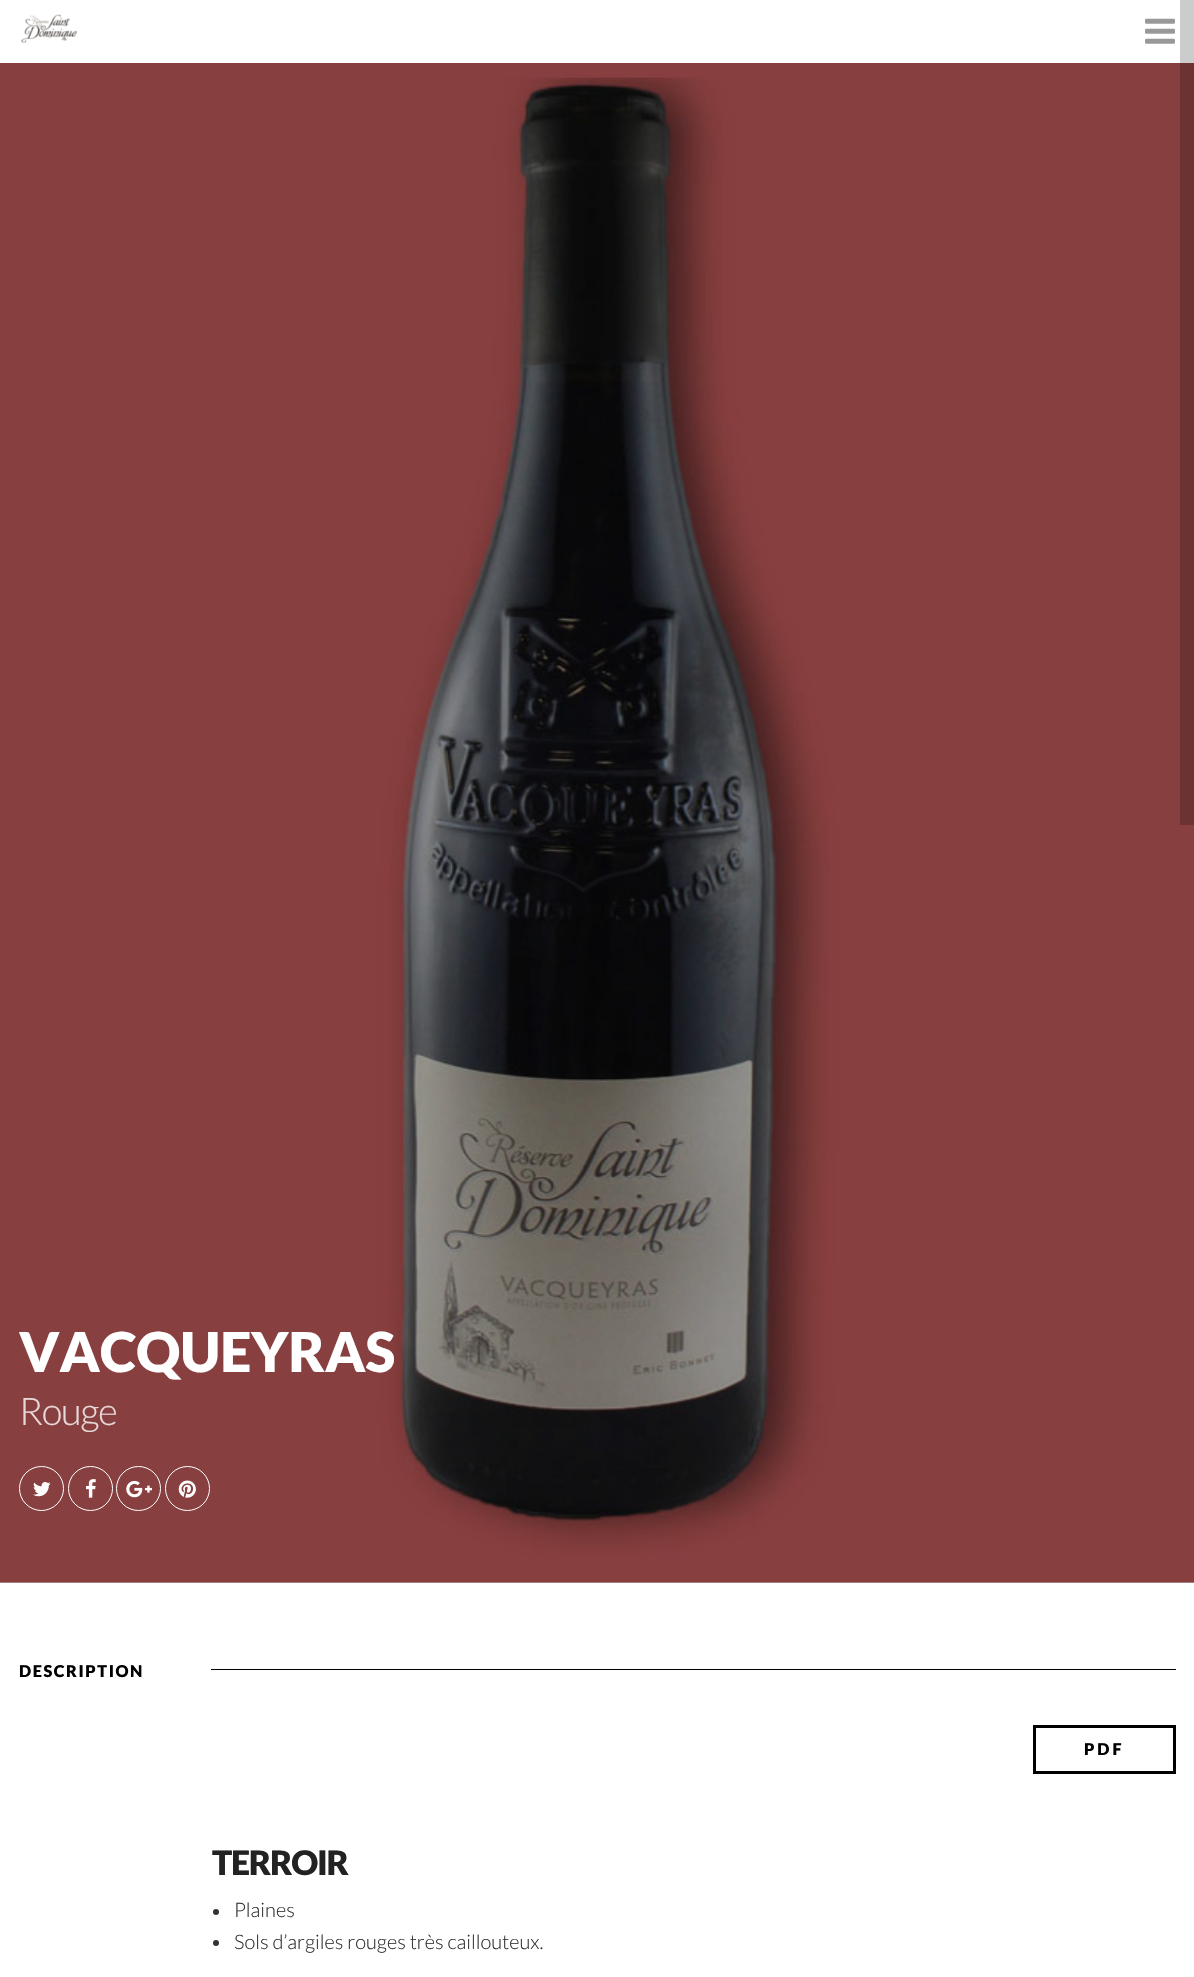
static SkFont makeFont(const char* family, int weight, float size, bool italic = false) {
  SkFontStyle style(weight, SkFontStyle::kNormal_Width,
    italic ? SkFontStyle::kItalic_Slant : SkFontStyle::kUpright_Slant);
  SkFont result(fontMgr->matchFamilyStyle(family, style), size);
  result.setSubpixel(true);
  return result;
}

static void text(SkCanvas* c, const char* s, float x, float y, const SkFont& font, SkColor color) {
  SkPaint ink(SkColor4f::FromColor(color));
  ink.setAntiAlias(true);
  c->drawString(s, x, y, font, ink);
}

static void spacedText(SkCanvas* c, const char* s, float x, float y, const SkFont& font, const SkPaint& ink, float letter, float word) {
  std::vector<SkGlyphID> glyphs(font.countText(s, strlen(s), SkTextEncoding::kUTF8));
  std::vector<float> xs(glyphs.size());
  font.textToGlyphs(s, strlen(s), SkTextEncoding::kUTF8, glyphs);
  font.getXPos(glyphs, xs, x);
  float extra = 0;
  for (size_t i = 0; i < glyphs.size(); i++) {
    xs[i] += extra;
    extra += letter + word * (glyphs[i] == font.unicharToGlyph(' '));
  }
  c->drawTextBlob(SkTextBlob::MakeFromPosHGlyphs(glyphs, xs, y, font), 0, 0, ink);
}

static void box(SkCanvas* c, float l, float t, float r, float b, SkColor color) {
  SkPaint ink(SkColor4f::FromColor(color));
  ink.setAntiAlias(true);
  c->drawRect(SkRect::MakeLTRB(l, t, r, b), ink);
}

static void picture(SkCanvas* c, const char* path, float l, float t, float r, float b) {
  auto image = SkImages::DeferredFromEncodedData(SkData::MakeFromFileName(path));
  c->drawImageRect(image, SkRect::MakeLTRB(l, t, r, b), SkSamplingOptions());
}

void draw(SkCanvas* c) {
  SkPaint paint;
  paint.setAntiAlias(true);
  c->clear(0xffffffff);
  box(c, 0, 1582, 1194, 1583, 0xffb3b3b3);
  picture(c, "img_01.png", 21, 14, 78, 44);
  picture(c, "img_02.png", 1145, 18, 1175, 44);
  picture(c, "img_03.png", 0, 63, 1194, 1583);
  box(c, 1180, 0, 1194, 825, 0x33000000);
  SkFont face1 = makeFont("Lato", 900, 55);
  text(c, "VACQUEYRAS", 19, 1372, face1, 0xffffffff);
  SkFont face2 = makeFont("Lato", 300, 38);
  paint.setColor(0xffe7d9d9);
  spacedText(c, "Rouge", 19, 1425, face2, paint, -1.25f, 0);
  paint.setStyle(SkPaint::kStroke_Style);
  paint.setStrokeWidth(1);
  paint.setColor(0xffffffff);
  c->drawCircle(41.5f, 1488.5f, 22, paint);
  picture(c, "img_04.png", 33, 1482, 51, 1497);
  c->drawCircle(90.5f, 1488.5f, 22, paint);
  picture(c, "img_05.png", 86, 1479, 96, 1498);
  c->drawCircle(138.5f, 1488.5f, 22, paint);
  picture(c, "img_06.png", 126, 1480, 152, 1498);
  c->drawCircle(187.5f, 1488.5f, 22, paint);
  picture(c, "img_07.png", 178, 1480, 196, 1498);
  SkFont face3 = makeFont("Lato", 900, 16.25f);
  paint.setStyle(SkPaint::kFill_Style);
  paint.setColor(0xff000000);
  spacedText(c, "DESCRIPTION", 19, 1677, face3, paint, 1.6f, 0);
  box(c, 211, 1669, 1176, 1670, 0xff000000);
  paint.setStyle(SkPaint::kStroke_Style);
  paint.setStrokeWidth(3);
  c->drawRect(SkRect::MakeLTRB(1034.5f, 1726.5f, 1174.5f, 1772.5f), paint);
  paint.setStyle(SkPaint::kFill_Style);
  spacedText(c, "PDF", 1084, 1755, face3, paint, 3, 0);
  SkFont face4 = makeFont("Lato", 900, 33.75f);
  paint.setColor(0xff222222);
  spacedText(c, "TERROIR", 212, 1875, face4, paint, -1.25f, 0);
  paint.setColor(0xff313131);
  c->drawCircle(216, 1912, 3, paint);
  SkFont face5 = makeFont("Lato", 300, 20);
  text(c, "Plaines", 234, 1917, face5, 0xff313131);
  c->drawCircle(216, 1943, 3, paint);
  text(c, "Sols d’argiles rouges très caillouteux.", 234, 1949, face5, 0xff313131);
}
